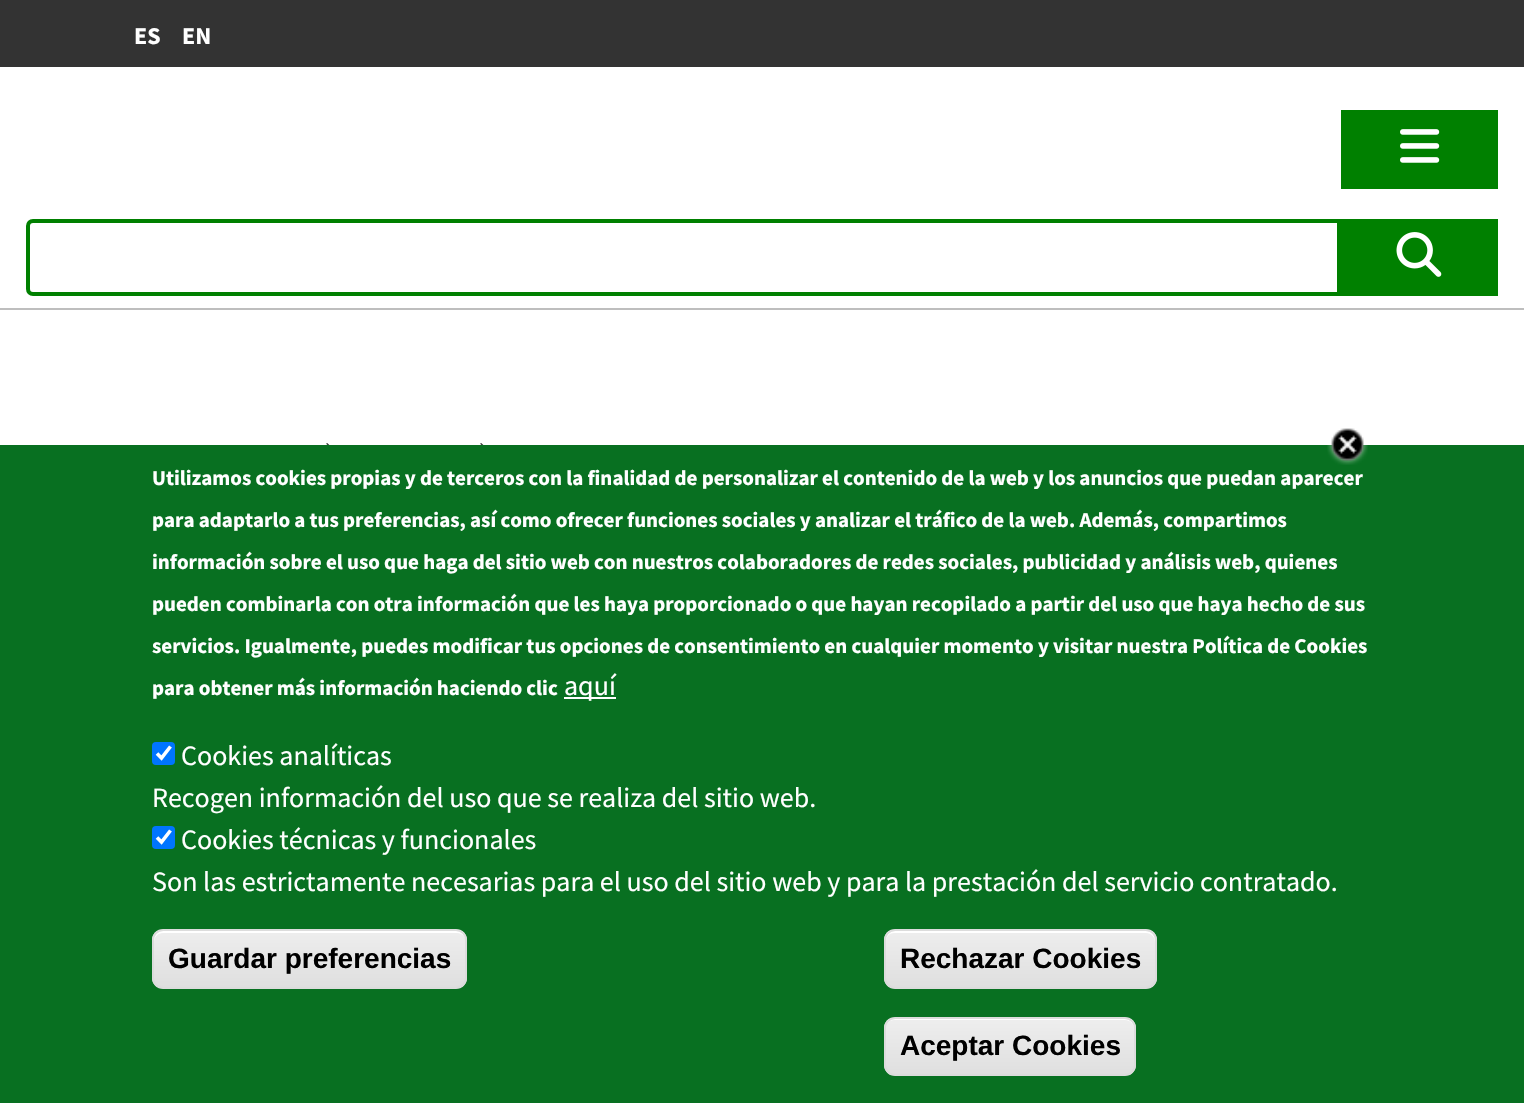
static SkFont makeFont(const char* family, int weight, float size, bool italic = false) {
  SkFontStyle style(weight, SkFontStyle::kNormal_Width,
    italic ? SkFontStyle::kItalic_Slant : SkFontStyle::kUpright_Slant);
  SkFont result(fontMgr->matchFamilyStyle(family, style), size);
  result.setSubpixel(true);
  return result;
}

static void text(SkCanvas* c, const char* s, float x, float y, const SkFont& font, SkColor color) {
  SkPaint ink(SkColor4f::FromColor(color));
  ink.setAntiAlias(true);
  c->drawString(s, x, y, font, ink);
}

static void box(SkCanvas* c, float l, float t, float r, float b, SkColor color) {
  SkPaint ink(SkColor4f::FromColor(color));
  ink.setAntiAlias(true);
  c->drawRect(SkRect::MakeLTRB(l, t, r, b), ink);
}

static void roundBox(SkCanvas* c, float l, float t, float r, float b, float radius, SkColor color) {
  SkPaint ink(SkColor4f::FromColor(color));
  ink.setAntiAlias(true);
  c->drawRoundRect(SkRect::MakeLTRB(l, t, r, b), radius, radius, ink);
}

static void picture(SkCanvas* c, const char* path, float l, float t, float r, float b) {
  auto image = SkImages::DeferredFromEncodedData(SkData::MakeFromFileName(path));
  c->drawImageRect(image, SkRect::MakeLTRB(l, t, r, b), SkSamplingOptions());
}

void draw(SkCanvas* c) {
  SkPaint paint;
  paint.setAntiAlias(true);
  c->clear(0xffffffff);
  box(c, 0, 0, 1524, 67, 0xff333333);
  SkFont face1 = makeFont("Source Sans Pro", 700, 24);
  text(c, "ES", 134, 44, face1, 0xffffffff);
  text(c, "EN", 182, 44, face1, 0xffffffff);
  box(c, 1341, 110, 1498, 189, 0xff008000);
  picture(c, "img_01.png", 1400, 129, 1440, 163);
  paint.setStyle(SkPaint::kStroke_Style);
  paint.setStrokeWidth(4);
  paint.setColor(0xff008000);
  c->drawPath(SkPathBuilder().moveTo(33, 221).lineTo(1339, 221).lineTo(1339, 294).lineTo(33, 294).cubicTo(30, 294, 28, 292, 28, 289).lineTo(28, 226).cubicTo(28, 223, 30, 221, 33, 221).close().detach(), paint);
  box(c, 1341, 219, 1498, 296, 0xff008000);
  picture(c, "img_02.png", 1396, 232, 1442, 277);
  box(c, 0, 308, 1524, 310, 0xffbebebe);
  picture(c, "img_03.png", 326, 443, 330, 445);
  picture(c, "img_03.png", 480, 443, 484, 445);
  box(c, 0, 445, 1524, 1103, 0xff087021);
  picture(c, "img_04.png", 1327, 428, 1368, 465);
  SkFont face2 = makeFont("Source Sans Pro", 700, 21);
  text(c, "Utilizamos cookies propias y de terceros con la finalidad de personalizar el contenido de la web y los anuncios que puedan aparecer", 152, 485, face2, 0xffffffff);
  text(c, "para adaptarlo a tus preferencias, así como ofrecer funciones sociales y analizar el tráfico de la web. Además, compartimos", 152, 527, face2, 0xffffffff);
  text(c, "información sobre el uso que haga del sitio web con nuestros colaboradores de redes sociales, publicidad y análisis web, quienes", 152, 569, face2, 0xffffffff);
  text(c, "pueden combinarla con otra información que les haya proporcionado o que hayan recopilado a partir del uso que haya hecho de sus", 152, 611, face2, 0xffffffff);
  text(c, "servicios. Igualmente, puedes modificar tus opciones de consentimiento en cualquier momento y visitar nuestra Política de Cookies", 152, 653, face2, 0xffffffff);
  text(c, "para obtener más información haciendo clic", 152, 695, face2, 0xffffffff);
  box(c, 564, 697, 616, 699, 0xffffffff);
  SkFont face3 = makeFont("Source Sans Pro", 400, 28);
  text(c, "aquí", 564, 695, face3, 0xffffffff);
  roundBox(c, 152, 742, 175, 765, 4, 0xff0075ff);
  paint.setStrokeWidth(3.6f);
  paint.setColor(0xffffffff);
  c->drawPath(SkPathBuilder().moveTo(157, 753.5f).lineTo(161.5f, 758).lineTo(170.5f, 746.5f).detach(), paint);
  text(c, "Cookies analíticas", 181, 765, face3, 0xffffffff);
  text(c, "Recogen información del uso que se realiza del sitio web.", 152, 807, face3, 0xffffffff);
  roundBox(c, 152, 826, 175, 849, 4, 0xff0075ff);
  c->drawPath(SkPathBuilder().moveTo(157, 837.5f).lineTo(161.5f, 842).lineTo(170.5f, 830.5f).detach(), paint);
  text(c, "Cookies técnicas y funcionales", 181, 849, face3, 0xffffffff);
  text(c, "Son las estrictamente necesarias para el uso del sitio web y para la prestación del servicio contratado.", 152, 891, face3, 0xffffffff);
  c->save();
  c->clipPath(SkPathBuilder().moveTo(163, 929).lineTo(456, 929).cubicTo(462, 929, 467, 934, 467, 940).lineTo(467, 978).cubicTo(467, 984, 462, 989, 456, 989).lineTo(163, 989).cubicTo(157, 989, 152, 984, 152, 978).lineTo(152, 940).cubicTo(152, 934, 157, 929, 163, 929).close().detach(), true);
  paint.setStyle(SkPaint::kFill_Style);
  {
    const SkColor colors[] = {0xffededed, 0xffdfdfdf};
    const float stops[] = {0.05f, 1};
    const SkPoint ends[] = {{310, 931}, {310, 987}};
    paint.setShader(SkGradientShader::MakeLinear(ends, colors, stops, 2, SkTileMode::kClamp));
    paint.setAlpha(255);
  }
  c->drawRect(SkRect::MakeLTRB(152, 931, 467, 987), paint);
  c->restore();
  paint.setShader(nullptr);
  paint.setColor(0xffffffff);
  c->drawPath(SkPathBuilder().moveTo(163, 933).lineTo(457, 933).cubicTo(462, 933, 466, 937, 466, 942).lineTo(466, 940).cubicTo(466, 935, 462, 931, 457, 931).lineTo(163, 931).cubicTo(158, 931, 154, 935, 154, 940).lineTo(154, 942).cubicTo(154, 937, 158, 933, 163, 933).close().detach(), paint);
  paint.setStyle(SkPaint::kStroke_Style);
  paint.setStrokeWidth(2);
  paint.setColor(0xffdcdcdc);
  c->drawRoundRect(SkRect::MakeLTRB(153, 930, 466, 988), 10, 10, paint);
  SkFont face4 = makeFont("Liberation Sans", 700, 28);
  text(c, "Guardar preferencias", 168, 968, face4, 0xff000000);
  c->save();
  c->clipPath(SkPathBuilder().moveTo(895, 929).lineTo(1146, 929).cubicTo(1152, 929, 1157, 934, 1157, 940).lineTo(1157, 978).cubicTo(1157, 984, 1152, 989, 1146, 989).lineTo(895, 989).cubicTo(889, 989, 884, 984, 884, 978).lineTo(884, 940).cubicTo(884, 934, 889, 929, 895, 929).close().detach(), true);
  paint.setStyle(SkPaint::kFill_Style);
  {
    const SkColor colors[] = {0xffededed, 0xffdfdfdf};
    const float stops[] = {0.05f, 1};
    const SkPoint ends[] = {{1020, 931}, {1020, 987}};
    paint.setShader(SkGradientShader::MakeLinear(ends, colors, stops, 2, SkTileMode::kClamp));
    paint.setAlpha(255);
  }
  c->drawRect(SkRect::MakeLTRB(884, 931, 1157, 987), paint);
  c->restore();
  paint.setShader(nullptr);
  paint.setColor(0xffffffff);
  c->drawPath(SkPathBuilder().moveTo(894, 933).lineTo(1146, 933).cubicTo(1151, 933, 1155, 937, 1155, 942).lineTo(1155, 940).cubicTo(1155, 935, 1151, 931, 1146, 931).lineTo(895, 931).cubicTo(890, 931, 886, 935, 886, 940).lineTo(886, 942).cubicTo(886, 937, 889, 933, 894, 933).close().detach(), paint);
  paint.setStyle(SkPaint::kStroke_Style);
  paint.setColor(0xffdcdcdc);
  c->drawRoundRect(SkRect::MakeLTRB(885, 930, 1156, 988), 10, 10, paint);
  text(c, "Rechazar Cookies", 900, 968, face4, 0xff000000);
  c->save();
  c->clipPath(SkPathBuilder().moveTo(895, 1017).lineTo(1125, 1017).cubicTo(1131, 1017, 1136, 1022, 1136, 1028).lineTo(1136, 1065).cubicTo(1136, 1071, 1131, 1076, 1125, 1076).lineTo(895, 1076).cubicTo(889, 1076, 884, 1071, 884, 1065).lineTo(884, 1028).cubicTo(884, 1022, 889, 1017, 895, 1017).close().detach(), true);
  paint.setStyle(SkPaint::kFill_Style);
  {
    const SkColor colors[] = {0xffededed, 0xffdfdfdf};
    const float stops[] = {0.05f, 1};
    const SkPoint ends[] = {{1010, 1019}, {1010, 1075}};
    paint.setShader(SkGradientShader::MakeLinear(ends, colors, stops, 2, SkTileMode::kClamp));
    paint.setAlpha(255);
  }
  c->drawRect(SkRect::MakeLTRB(884, 1019, 1136, 1075), paint);
  c->restore();
  paint.setShader(nullptr);
  paint.setColor(0xffffffff);
  c->drawPath(SkPathBuilder().moveTo(894, 1020).lineTo(1125, 1020).cubicTo(1130, 1020, 1134, 1024, 1134, 1029).lineTo(1134, 1028).cubicTo(1134, 1023, 1130, 1019, 1125, 1019).lineTo(895, 1019).cubicTo(890, 1019, 886, 1023, 886, 1028).lineTo(886, 1029).cubicTo(886, 1024, 889, 1020, 894, 1020).close().detach(), paint);
  paint.setStyle(SkPaint::kStroke_Style);
  paint.setColor(0xffdcdcdc);
  c->drawRoundRect(SkRect::MakeLTRB(885, 1018, 1135, 1075), 10, 10, paint);
  text(c, "Aceptar Cookies", 900, 1055, face4, 0xff000000);
}
